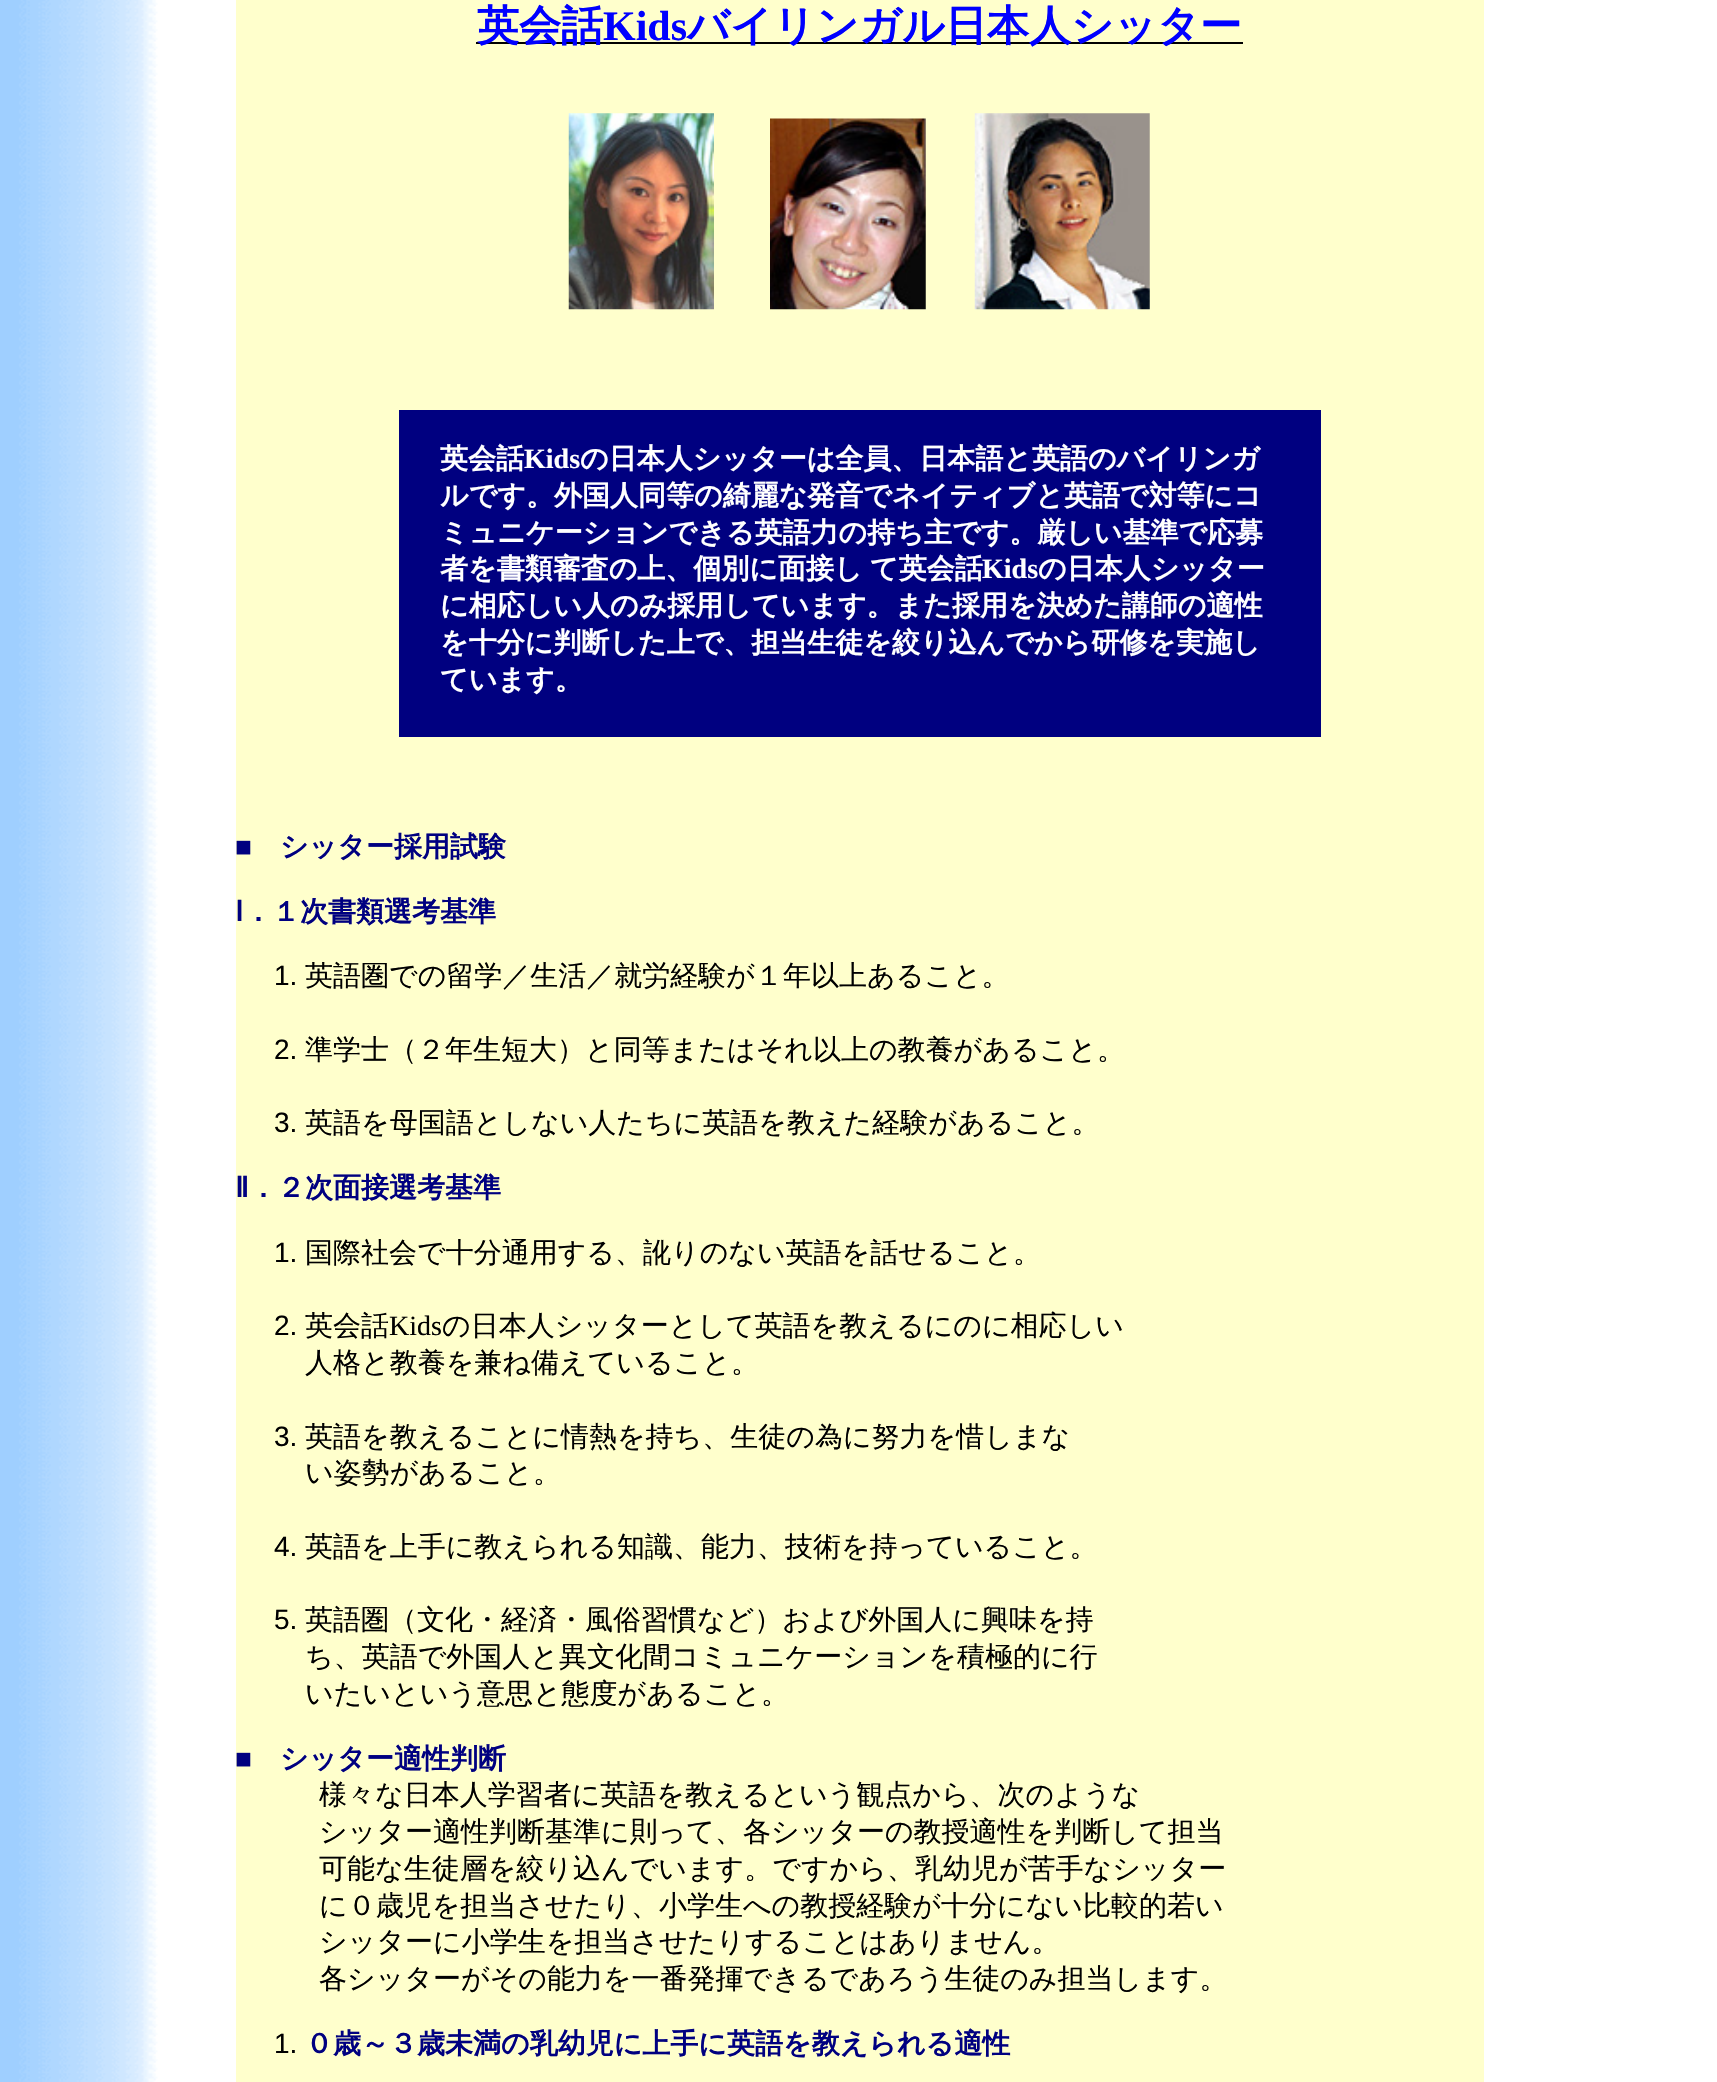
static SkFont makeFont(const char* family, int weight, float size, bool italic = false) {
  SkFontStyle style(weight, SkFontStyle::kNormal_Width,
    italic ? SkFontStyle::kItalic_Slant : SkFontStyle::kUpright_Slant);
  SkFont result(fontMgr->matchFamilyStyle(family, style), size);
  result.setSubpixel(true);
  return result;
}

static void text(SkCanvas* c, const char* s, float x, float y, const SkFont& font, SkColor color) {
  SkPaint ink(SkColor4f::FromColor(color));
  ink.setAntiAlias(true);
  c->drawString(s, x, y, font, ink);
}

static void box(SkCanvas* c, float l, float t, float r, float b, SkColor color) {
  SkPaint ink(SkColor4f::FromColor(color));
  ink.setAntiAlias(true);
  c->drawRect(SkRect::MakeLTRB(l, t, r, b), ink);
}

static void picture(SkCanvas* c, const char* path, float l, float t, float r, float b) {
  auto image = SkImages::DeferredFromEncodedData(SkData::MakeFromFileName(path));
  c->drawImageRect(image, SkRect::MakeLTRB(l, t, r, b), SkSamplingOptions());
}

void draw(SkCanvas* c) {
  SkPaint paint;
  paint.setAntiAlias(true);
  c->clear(0xffffffff);
  picture(c, "img_01.png", 0, 0, 1717, 2082);
  box(c, 236, 0, 1484, 2082, 0xffffffcc);
  box(c, 476, 42, 1243, 44, 0xff000000);
  SkFont face1 = makeFont("WenQuanYi Zen Hei", 700, 42);
  text(c, "英会話", 477, 40, face1, 0xff0000ff);
  SkFont face2 = makeFont("Liberation Serif", 700, 42);
  text(c, "Kids", 603, 40, face2, 0xff0000ff);
  text(c, "バイリンガル日本人シッター", 687, 40, face1, 0xff0000ff);
  picture(c, "img_02.png", 568, 113, 714, 310);
  picture(c, "img_03.png", 770, 118, 926, 310);
  picture(c, "img_04.png", 974, 113, 1150, 310);
  box(c, 399, 410, 1321, 737, 0xff000080);
  SkFont face3 = makeFont("WenQuanYi Zen Hei", 700, 28);
  text(c, "英会話", 440, 468, face3, 0xffffffff);
  SkFont face4 = makeFont("Liberation Serif", 700, 28);
  text(c, "Kids", 524, 468, face4, 0xffffffff);
  text(c, "の日本人シッターは全員、日本語と英語のバイリンガ", 580, 468, face3, 0xffffffff);
  text(c, "ルです。外国人同等の綺麗な発音でネイティブと英語で対等にコ", 440, 505, face3, 0xffffffff);
  text(c, "ミュニケーションできる英語力の持ち主です。厳しい基準で応募", 440, 542, face3, 0xffffffff);
  text(c, "者を書類審査の上、個別に面接し", 440, 578, face3, 0xffffffff);
  text(c, "て英会話", 870, 578, face3, 0xffffffff);
  text(c, "Kids", 982, 578, face4, 0xffffffff);
  text(c, "の日本人シッター", 1038, 578, face3, 0xffffffff);
  text(c, "に相応しい人のみ採用しています。また採用を決めた講師の適性", 440, 615, face3, 0xffffffff);
  text(c, "を十分に判断した上で、担当生徒を絞り込んでから研修を実施し", 440, 652, face3, 0xffffffff);
  text(c, "ています。", 440, 689, face3, 0xffffffff);
  SkFont face5 = makeFont("Liberation Serif", 400, 28);
  text(c, "■", 235, 856, face5, 0xff000080);
  text(c, "シッター採用試験", 280, 856, face3, 0xff000080);
  SkFont face6 = makeFont("DejaVu Sans", 700, 28);
  text(c, "Ⅰ", 235, 921, face6, 0xff000080);
  text(c, "．１次書類選考基準", 244, 921, face3, 0xff000080);
  SkFont face7 = makeFont("Liberation Sans", 400, 28);
  text(c, "1.", 274, 985, face7, 0xff000000);
  SkFont face8 = makeFont("WenQuanYi Zen Hei", 500, 28);
  text(c, "英語圏での留学／生活／就労経験が１年以上あること。", 305, 985, face8, 0xff000000);
  text(c, "2.", 274, 1059, face7, 0xff000000);
  text(c, "準学士（２年生短大）と同等またはそれ以上の教養があること。", 305, 1059, face8, 0xff000000);
  text(c, "3.", 274, 1132, face7, 0xff000000);
  text(c, "英語を母国語としない人たちに英語を教えた経験があること。", 305, 1132, face8, 0xff000000);
  text(c, "Ⅱ", 235, 1197, face6, 0xff000080);
  text(c, "．２次面接選考基準", 249, 1197, face3, 0xff000080);
  text(c, "1.", 274, 1262, face7, 0xff000000);
  text(c, "国際社会で十分通用する、訛りのない英語を話せること。", 305, 1262, face8, 0xff000000);
  text(c, "2.", 274, 1335, face7, 0xff000000);
  text(c, "英会話", 305, 1335, face8, 0xff000000);
  text(c, "Kids", 389, 1335, face5, 0xff000000);
  text(c, "の日本人シッターとして英語を教えるにのに相応しい", 442, 1335, face8, 0xff000000);
  text(c, "人格と教養を兼ね備えていること。", 305, 1372, face8, 0xff000000);
  text(c, "3.", 274, 1446, face7, 0xff000000);
  text(c, "英語を教えることに情熱を持ち、生徒の為に努力を惜しまな", 305, 1446, face8, 0xff000000);
  text(c, "い姿勢があること。", 305, 1482, face8, 0xff000000);
  text(c, "4.", 274, 1556, face7, 0xff000000);
  text(c, "英語を上手に教えられる知識、能力、技術を持っていること。", 305, 1556, face8, 0xff000000);
  text(c, "5.", 274, 1629, face7, 0xff000000);
  text(c, "英語圏（文化・経済・風俗習慣など）および外国人に興味を持", 305, 1629, face8, 0xff000000);
  text(c, "ち、英語で外国人と異文化間コミュニケーションを積極的に行", 305, 1666, face8, 0xff000000);
  text(c, "いたいという意思と態度があること。", 305, 1703, face8, 0xff000000);
  text(c, "■", 235, 1768, face5, 0xff000080);
  text(c, "シッター適性判断", 280, 1768, face3, 0xff000080);
  text(c, "様々な日本人学習者に英語を教えるという観点から、次のような", 319, 1804, face8, 0xff000000);
  text(c, "シッター適性判断基準に則って、各シッターの教授適性を判断して担当", 319, 1841, face8, 0xff000000);
  text(c, "可能な生徒層を絞り込んでいます。ですから、乳幼児が苦手なシッター", 319, 1878, face8, 0xff000000);
  text(c, "に０歳児を担当させたり、小学生への教授経験が十分にない比較的若い", 319, 1915, face8, 0xff000000);
  text(c, "シッターに小学生を担当させたりすることはありません。", 319, 1951, face8, 0xff000000);
  text(c, "各シッターがその能力を一番発揮できるであろう生徒のみ担当します。", 319, 1988, face8, 0xff000000);
  text(c, "1.", 274, 2053, face7, 0xff000000);
  text(c, "０歳～３歳未満の乳幼児に上手に英語を教えられる適性", 305, 2053, face3, 0xff000080);
}
